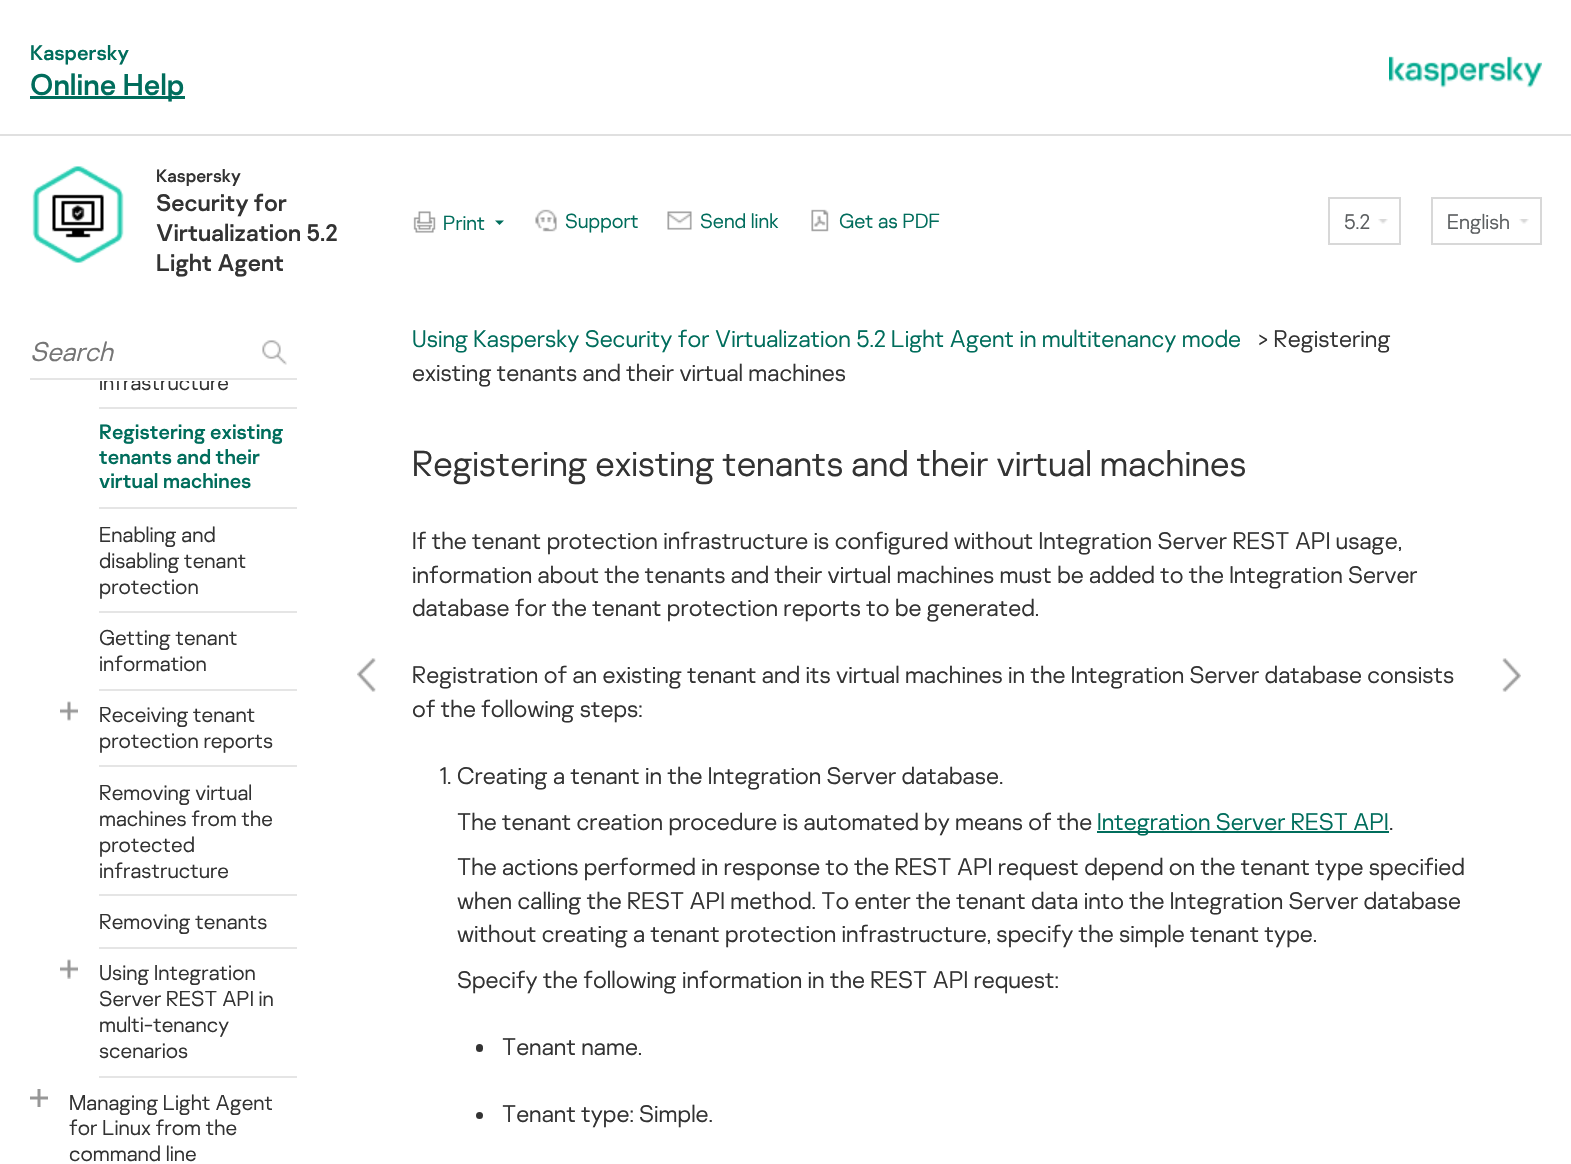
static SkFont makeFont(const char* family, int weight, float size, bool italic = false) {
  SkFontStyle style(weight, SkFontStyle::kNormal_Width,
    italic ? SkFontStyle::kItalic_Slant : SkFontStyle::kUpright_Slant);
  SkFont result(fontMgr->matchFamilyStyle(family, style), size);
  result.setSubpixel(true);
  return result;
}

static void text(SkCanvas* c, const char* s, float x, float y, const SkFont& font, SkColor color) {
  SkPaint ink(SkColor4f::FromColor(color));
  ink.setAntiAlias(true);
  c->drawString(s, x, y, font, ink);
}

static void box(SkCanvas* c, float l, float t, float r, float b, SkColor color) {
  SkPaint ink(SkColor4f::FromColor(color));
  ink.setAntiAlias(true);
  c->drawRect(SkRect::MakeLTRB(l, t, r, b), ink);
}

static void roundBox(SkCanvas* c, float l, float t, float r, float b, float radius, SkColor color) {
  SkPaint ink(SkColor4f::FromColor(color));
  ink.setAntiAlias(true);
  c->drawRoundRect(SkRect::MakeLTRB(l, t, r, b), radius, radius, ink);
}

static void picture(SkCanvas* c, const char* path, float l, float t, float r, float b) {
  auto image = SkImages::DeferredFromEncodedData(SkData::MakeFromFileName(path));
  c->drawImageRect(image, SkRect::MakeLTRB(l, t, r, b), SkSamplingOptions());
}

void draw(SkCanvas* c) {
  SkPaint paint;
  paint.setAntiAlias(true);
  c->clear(0xffffffff);
  box(c, 0, 134, 1571, 136, 0xffe0e0e0);
  SkFont face1 = makeFont("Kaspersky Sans", 400, 21);
  text(c, "Kaspersky", 30, 60, face1, 0xff006d5c);
  box(c, 30, 96, 185, 99, 0xff006d5c);
  SkFont face2 = makeFont("Kaspersky Sans", 400, 30);
  text(c, "Online Help", 30, 95, face2, 0xff006d5c);
  picture(c, "img_01.png", 1389, 56, 1542, 88);
  picture(c, "img_02.png", 32, 166, 124, 263);
  SkFont face3 = makeFont("Kaspersky Sans", 400, 18);
  text(c, "Kaspersky", 156, 182, face3, 0xff333333);
  SkFont face4 = makeFont("Kaspersky Sans", 400, 24);
  text(c, "Security for", 156, 211, face4, 0xff333333);
  text(c, "Virtualization 5.2", 156, 241, face4, 0xff333333);
  text(c, "Light Agent", 156, 271, face4, 0xff333333);
  picture(c, "img_03.png", 413, 211, 436, 233);
  SkFont face5 = makeFont("Kaspersky Sans", 300, 20.5f);
  text(c, "Print", 443, 230, face5, 0xff006d5c);
  paint.setColor(0xff006d5c);
  c->drawPath(SkPathBuilder().moveTo(495, 220.5f).lineTo(504, 220.5f).lineTo(499.5f, 225).close().detach(), paint);
  picture(c, "img_04.png", 535, 209, 557, 232);
  text(c, "Support", 565, 228, face5, 0xff006d5c);
  picture(c, "img_05.png", 667, 211, 692, 230);
  text(c, "Send link", 700, 228, face5, 0xff006d5c);
  picture(c, "img_06.png", 811, 209, 829, 232);
  text(c, "Get as PDF", 839, 228, face5, 0xff006d5c);
  paint.setStyle(SkPaint::kStroke_Style);
  paint.setStrokeWidth(2);
  paint.setColor(0xffd8d8d8);
  c->drawRect(SkRect::MakeLTRB(1329, 198, 1400, 244), paint);
  SkFont face6 = makeFont("Kaspersky Sans", 300, 21);
  text(c, "5.2", 1344, 229, face6, 0xff5c5f61);
  picture(c, "img_07.png", 1378, 219, 1388, 224);
  c->drawRect(SkRect::MakeLTRB(1432, 198, 1541, 244), paint);
  text(c, "English", 1447, 229, face6, 0xff5c5f61);
  picture(c, "img_07.png", 1519, 219, 1529, 224);
  box(c, 30, 378, 297, 380, 0xffe5e5e5);
  SkFont face7 = makeFont("Kaspersky Sans", 300, 27, true);
  text(c, "Search", 30, 361, face7, 0xff757575);
  picture(c, "img_08.png", 262, 340, 287, 365);
  box(c, 99, 407, 297, 409, 0xffe5e5e5);
  c->save();
  c->clipRect(SkRect::MakeLTRB(30, 381, 321, 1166));
  SkFont face8 = makeFont("Kaspersky Sans", 300, 21.5f);
  text(c, "infrastructure", 99, 390, face8, 0xff333333);
  c->restore();
  box(c, 99, 507, 297, 509, 0xffe5e5e5);
  SkFont face9 = makeFont("Kaspersky Sans", 400, 20.75f);
  text(c, "Registering existing", 99, 439, face9, 0xff006d5c);
  text(c, "tenants and their", 99, 464, face9, 0xff006d5c);
  text(c, "virtual machines", 99, 488, face9, 0xff006d5c);
  box(c, 99, 611, 297, 613, 0xffe5e5e5);
  text(c, "Enabling and", 99, 542, face8, 0xff333333);
  text(c, "disabling tenant", 99, 568, face8, 0xff333333);
  text(c, "protection", 99, 594, face8, 0xff333333);
  box(c, 99, 689, 297, 691, 0xffe5e5e5);
  text(c, "Getting tenant", 99, 645, face8, 0xff333333);
  text(c, "information", 99, 671, face8, 0xff333333);
  picture(c, "img_09.png", 60, 701, 78, 721);
  box(c, 99, 765, 297, 767, 0xffe5e5e5);
  text(c, "Receiving tenant", 99, 722, face8, 0xff333333);
  text(c, "protection reports", 99, 748, face8, 0xff333333);
  box(c, 99, 894, 297, 896, 0xffe5e5e5);
  text(c, "Removing virtual", 99, 800, face8, 0xff333333);
  text(c, "machines from the", 99, 826, face8, 0xff333333);
  text(c, "protected", 99, 852, face8, 0xff333333);
  text(c, "infrastructure", 99, 878, face8, 0xff333333);
  box(c, 99, 947, 297, 949, 0xffe5e5e5);
  text(c, "Removing tenants", 99, 929, face8, 0xff333333);
  picture(c, "img_10.png", 60, 959, 78, 979);
  box(c, 99, 1076, 297, 1078, 0xffe5e5e5);
  text(c, "Using Integration", 99, 980, face8, 0xff333333);
  text(c, "Server REST API in", 99, 1006, face8, 0xff333333);
  text(c, "multi-tenancy", 99, 1032, face8, 0xff333333);
  text(c, "scenarios", 99, 1058, face8, 0xff333333);
  picture(c, "img_11.png", 30, 1089, 48, 1107);
  text(c, "Managing Light Agent", 69, 1110, face8, 0xff333333);
  text(c, "for Linux from the", 69, 1135, face8, 0xff333333);
  text(c, "command line", 69, 1161, face8, 0xff333333);
  picture(c, "img_12.png", 357, 658, 376, 692);
  SkFont face10 = makeFont("Kaspersky Sans", 300, 24);
  text(c, "Using Kaspersky Security for Virtualization 5.2 Light Agent in multitenancy mode", 412, 347, face10, 0xff006d5c);
  text(c, ">  Registering", 1258, 347, face10, 0xff333333);
  text(c, "existing tenants and their virtual machines", 412, 381, face10, 0xff333333);
  SkFont face11 = makeFont("Kaspersky Sans", 300, 36);
  text(c, "Registering existing tenants and their virtual machines", 412, 476, face11, 0xff333333);
  text(c, "If the tenant protection infrastructure is configured without Integration Server REST API usage,", 412, 549, face10, 0xff333333);
  text(c, "information about the tenants and their virtual machines must be added to the Integration Server", 412, 583, face10, 0xff333333);
  text(c, "database for the tenant protection reports to be generated.", 412, 616, face10, 0xff333333);
  text(c, "Registration of an existing tenant and its virtual machines in the Integration Server database consists", 412, 683, face10, 0xff333333);
  text(c, "of the following steps:", 412, 717, face10, 0xff333333);
  text(c, "1. Creating a tenant in the Integration Server database.", 440, 784, face10, 0xff333333);
  text(c, "The tenant creation procedure is automated by means of the", 457, 830, face10, 0xff333333);
  box(c, 1097, 831, 1389, 833, 0xff006d5c);
  text(c, "Integration Server REST API", 1097, 830, face10, 0xff006d5c);
  text(c, ".", 1389, 830, face10, 0xff333333);
  text(c, "The actions performed in response to the REST API request depend on the tenant type specified", 457, 875, face10, 0xff333333);
  text(c, "when calling the REST API method. To enter the tenant data into the Integration Server database", 457, 909, face10, 0xff333333);
  text(c, "without creating a tenant protection infrastructure, specify the simple tenant type.", 457, 942, face10, 0xff333333);
  text(c, "Specify the following information in the REST API request:", 457, 988, face10, 0xff333333);
  roundBox(c, 476, 1044, 483, 1052, 3.5f, 0xff333333);
  text(c, "Tenant name.", 502, 1055, face10, 0xff333333);
  paint.setStyle(SkPaint::kFill_Style);
  paint.setColor(0xff333333);
  c->drawCircle(479.5f, 1115.5f, 3.5f, paint);
  text(c, "Tenant type: Simple.", 502, 1122, face10, 0xff333333);
  picture(c, "img_13.png", 1502, 658, 1521, 692);
}
